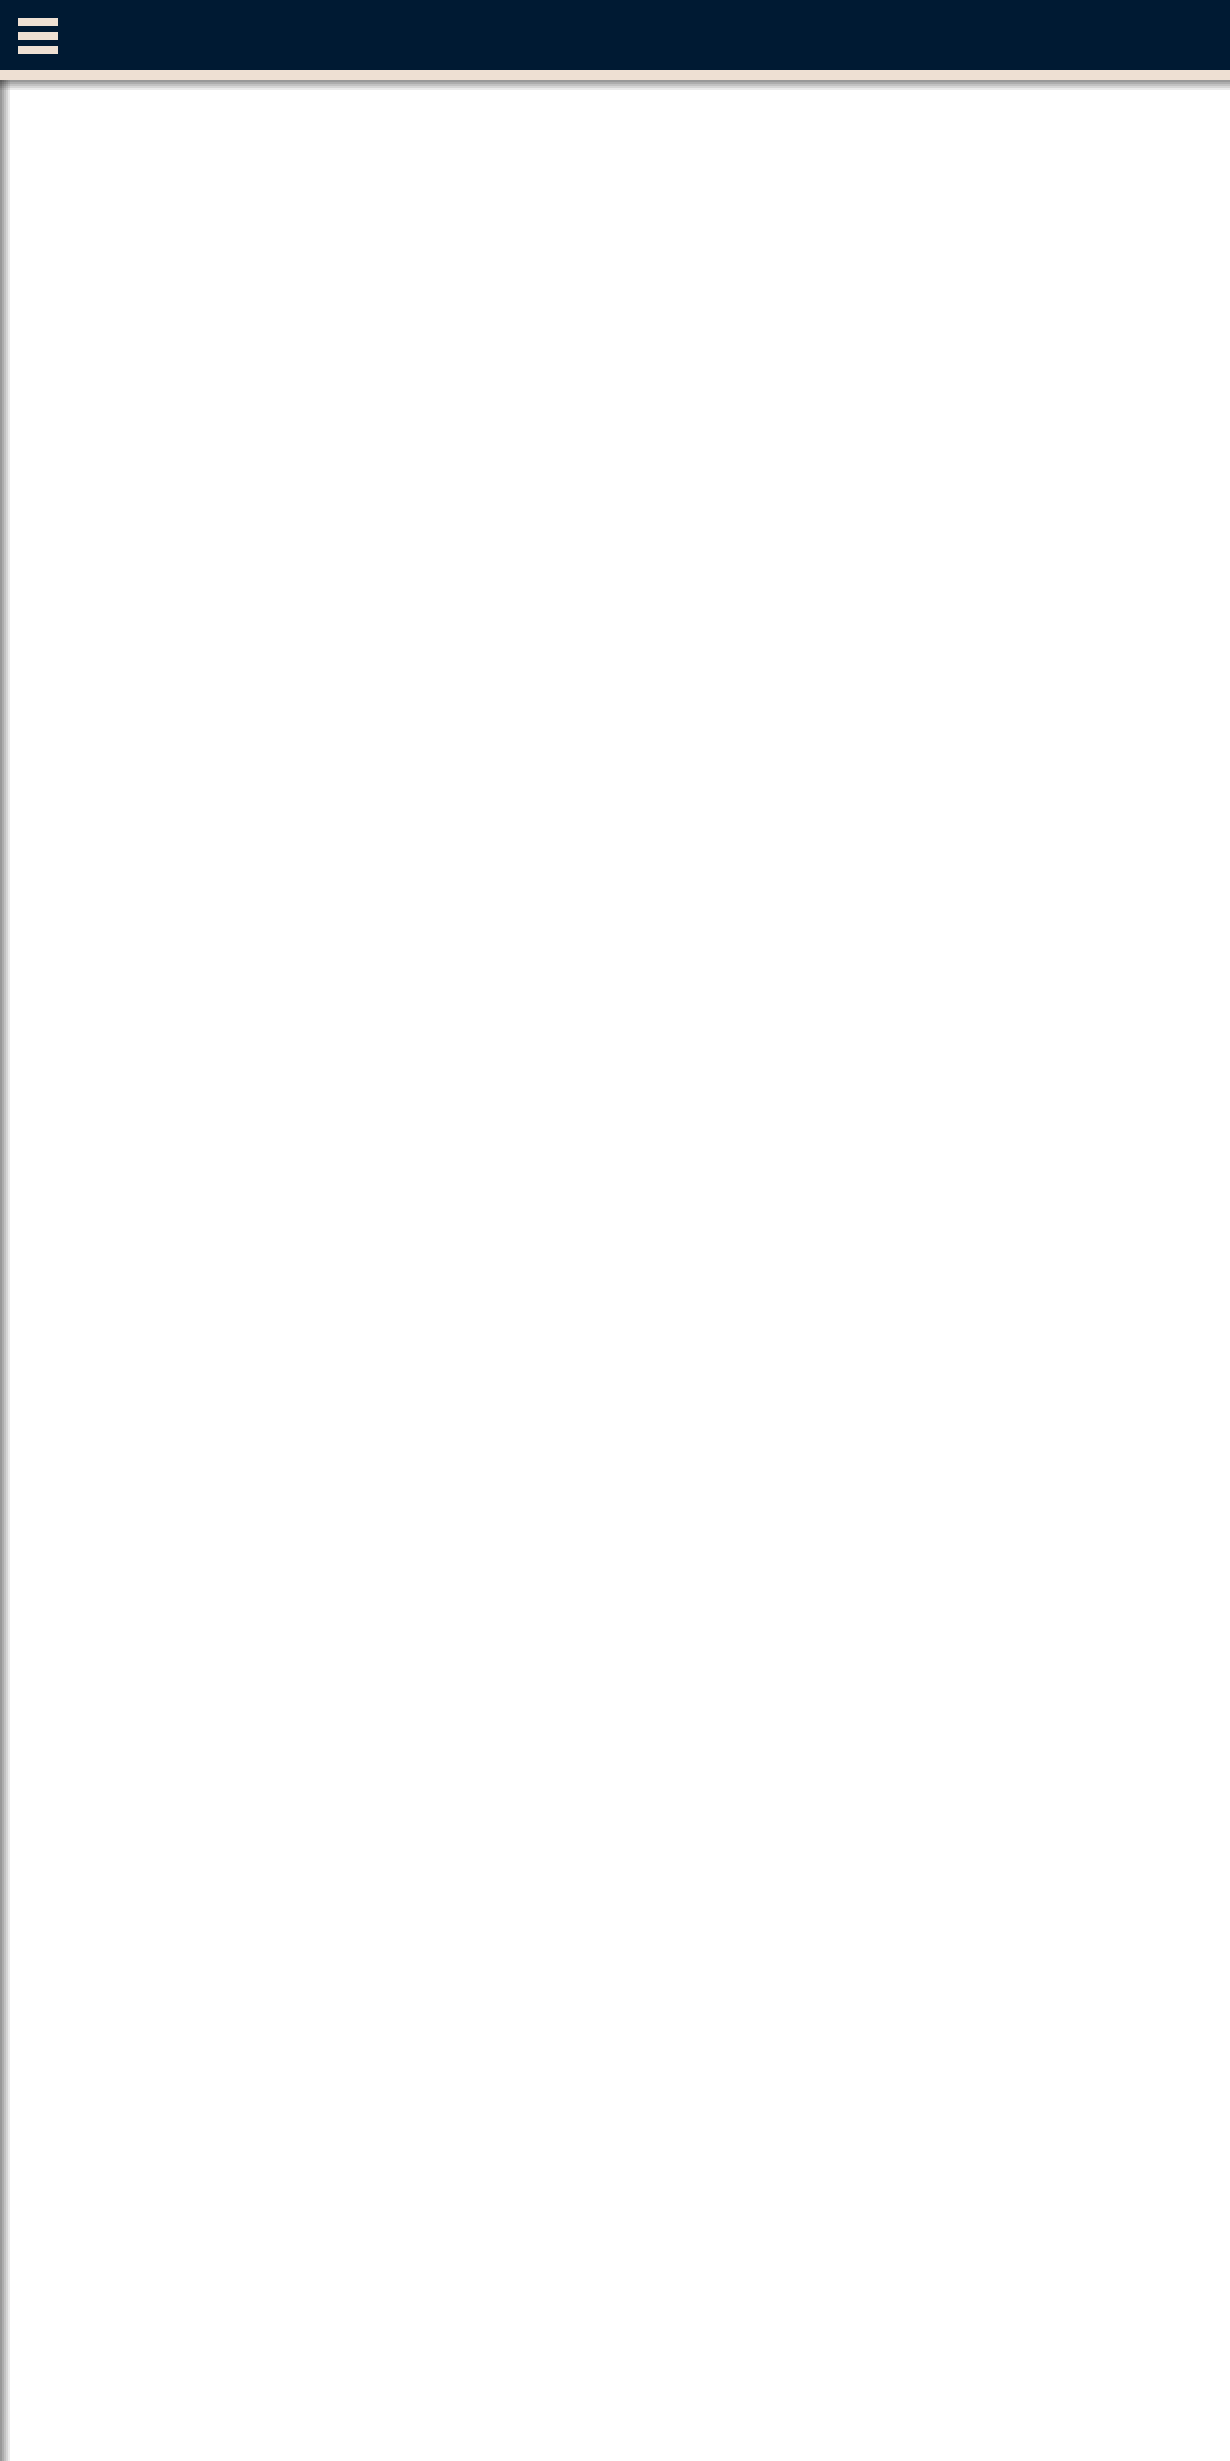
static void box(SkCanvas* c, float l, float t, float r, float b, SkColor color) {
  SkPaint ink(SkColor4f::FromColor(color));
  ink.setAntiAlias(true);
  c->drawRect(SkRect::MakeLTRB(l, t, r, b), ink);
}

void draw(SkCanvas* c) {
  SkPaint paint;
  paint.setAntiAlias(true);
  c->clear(0xffffffff);
  box(c, 8, 90, 10, 2461, 0xffebebeb);
  box(c, 6, 90, 8, 2461, 0xffd6d6d6);
  box(c, 4, 90, 6, 2461, 0xffc2c2c2);
  box(c, 2, 90, 4, 2461, 0xffadadad);
  box(c, 0, 90, 2, 2461, 0xff999999);
  box(c, 0, 0, 1230, 70, 0xff001a33);
  box(c, 0, 70, 1230, 80, 0xffeee0d3);
  box(c, 18, 18, 58, 26, 0xffeee0d3);
  box(c, 18, 32, 58, 40, 0xffeee0d3);
  box(c, 18, 46, 58, 54, 0xffeee0d3);
  box(c, 10, 80, 1230, 82, 0xff999999);
  box(c, 8, 80, 10, 82, 0xff8d8d8d);
  box(c, 6, 80, 8, 82, 0xff818181);
  box(c, 4, 80, 6, 82, 0xff747474);
  box(c, 2, 80, 4, 82, 0xff686868);
  box(c, 0, 80, 2, 82, 0xff5c5c5c);
  box(c, 10, 82, 1230, 84, 0xffadadad);
  box(c, 8, 82, 10, 84, 0xff9f9f9f);
  box(c, 6, 82, 8, 84, 0xff919191);
  box(c, 4, 82, 6, 84, 0xff838383);
  box(c, 2, 82, 4, 84, 0xff767676);
  box(c, 0, 82, 2, 84, 0xff686868);
  box(c, 10, 84, 1230, 86, 0xffc2c2c2);
  box(c, 8, 84, 10, 86, 0xffb2b2b2);
  box(c, 6, 84, 8, 86, 0xffa3a3a3);
  box(c, 4, 84, 6, 86, 0xff939393);
  box(c, 2, 84, 4, 86, 0xff848484);
  box(c, 0, 84, 2, 86, 0xff747474);
  box(c, 10, 86, 1230, 88, 0xffd6d6d6);
  box(c, 8, 86, 10, 88, 0xffc5c5c5);
  box(c, 6, 86, 8, 88, 0xffb4b4b4);
  box(c, 4, 86, 6, 88, 0xffa3a3a3);
  box(c, 2, 86, 4, 88, 0xff929292);
  box(c, 0, 86, 2, 88, 0xff808080);
  box(c, 10, 88, 1230, 90, 0xffebebeb);
  box(c, 8, 88, 10, 90, 0xffd8d8d8);
  box(c, 6, 88, 8, 90, 0xffc5c5c5);
  box(c, 4, 88, 6, 90, 0xffb3b3b3);
  box(c, 2, 88, 4, 90, 0xffa0a0a0);
  box(c, 0, 88, 2, 90, 0xff8d8d8d);
}
